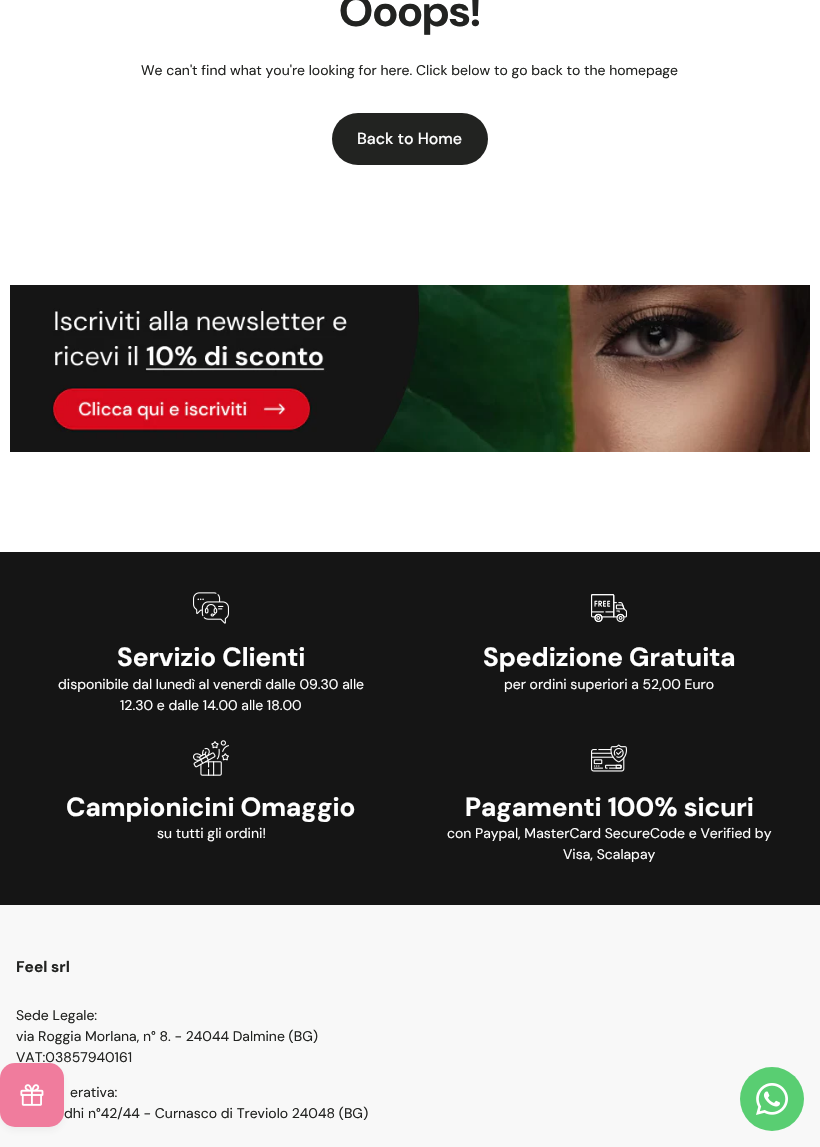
static SkFont makeFont(const char* family, int weight, float size, bool italic = false) {
  SkFontStyle style(weight, SkFontStyle::kNormal_Width,
    italic ? SkFontStyle::kItalic_Slant : SkFontStyle::kUpright_Slant);
  SkFont result(fontMgr->matchFamilyStyle(family, style), size);
  result.setSubpixel(true);
  return result;
}

static void text(SkCanvas* c, const char* s, float x, float y, const SkFont& font, SkColor color) {
  SkPaint ink(SkColor4f::FromColor(color));
  ink.setAntiAlias(true);
  c->drawString(s, x, y, font, ink);
}

static void box(SkCanvas* c, float l, float t, float r, float b, SkColor color) {
  SkPaint ink(SkColor4f::FromColor(color));
  ink.setAntiAlias(true);
  c->drawRect(SkRect::MakeLTRB(l, t, r, b), ink);
}

static void roundBox(SkCanvas* c, float l, float t, float r, float b, float radius, SkColor color) {
  SkPaint ink(SkColor4f::FromColor(color));
  ink.setAntiAlias(true);
  c->drawRoundRect(SkRect::MakeLTRB(l, t, r, b), radius, radius, ink);
}

static void picture(SkCanvas* c, const char* path, float l, float t, float r, float b) {
  auto image = SkImages::DeferredFromEncodedData(SkData::MakeFromFileName(path));
  c->drawImageRect(image, SkRect::MakeLTRB(l, t, r, b), SkSamplingOptions());
}

void draw(SkCanvas* c) {
  SkPaint paint;
  paint.setAntiAlias(true);
  c->clear(0xffffffff);
  SkFont face1 = makeFont("DM Sans", 700, 44);
  text(c, "Ooops!", 339, 26, face1, 0xff222321);
  SkFont face2 = makeFont("DM Sans", 400, 14);
  text(c, "We can't find what you're looking for here. Click below to go back to the homepage", 141, 75, face2, 0xff222321);
  roundBox(c, 332, 113, 488, 165, 26, 0xff222321);
  SkFont face3 = makeFont("DM Sans", 500, 16);
  text(c, "Back to Home", 357, 144, face3, 0xffffffff);
  picture(c, "img_01.png", 10, 285, 810, 452);
  box(c, 0, 552, 820, 905, 0xff151515);
  picture(c, "img_02.png", 193, 592, 229, 624);
  SkFont face4 = makeFont("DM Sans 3", 700, 26.4f);
  text(c, "Servizio Clienti", 117, 666, face4, 0xffffffff);
  text(c, "disponibile dal lunedì al venerdì dalle 09.30 alle", 58, 689, face2, 0xffffffff);
  text(c, "12.30 e dalle 14.00 alle 18.00", 120, 710, face2, 0xffffffff);
  picture(c, "img_03.png", 591, 594, 627, 623);
  text(c, "Spedizione Gratuita", 483, 666, face4, 0xffffffff);
  text(c, "per ordini superiori a 52,00 Euro", 504, 689, face2, 0xffffffff);
  picture(c, "img_04.png", 193, 740, 229, 776);
  text(c, "Campionicini Omaggio", 66, 816, face4, 0xffffffff);
  text(c, "su tutti gli ordini!", 157, 838, face2, 0xffffffff);
  picture(c, "img_05.png", 591, 744, 627, 772);
  text(c, "Pagamenti 100% sicuri", 465, 816, face4, 0xffffffff);
  text(c, "con Paypal, MasterCard SecureCode e Verified by", 447, 838, face2, 0xffffffff);
  text(c, "Visa, Scalapay", 563, 859, face2, 0xffffffff);
  box(c, 0, 905, 820, 1147, 0xfff8f8f8);
  SkFont face5 = makeFont("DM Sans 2", 700, 15.5f);
  text(c, "Feel srl", 16, 972, face5, 0xff222321);
  text(c, "Sede Legale:", 16, 1020, face2, 0xff222321);
  text(c, "via Roggia Morlana, n° 8. - 24044 Dalmine (BG)", 16, 1041, face2, 0xff222321);
  text(c, "VAT:03857940161", 16, 1062, face2, 0xff222321);
  text(c, "erativa:", 70, 1097, face2, 0xff222321);
  text(c, "dhi n°42/44 - Curnasco di Treviolo 24048 (BG)", 64, 1118, face2, 0xff222321);
  paint.setColor(0x14444444);
  paint.setMaskFilter(SkMaskFilter::MakeBlur(kNormal_SkBlurStyle, 4));
  c->drawRoundRect(SkRect::MakeLTRB(2, 1069, 62, 1129), 13, 13, paint);
  paint.setMaskFilter(nullptr);
  roundBox(c, 0, 1063, 64, 1127, 15, 0xfff07c9d);
  picture(c, "img_06.png", 20, 1084, 44, 1106);
  paint.setColor(0xff59ce72);
  c->drawCircle(772, 1099, 32, paint);
  picture(c, "img_07.png", 756, 1083, 788, 1115);
}
